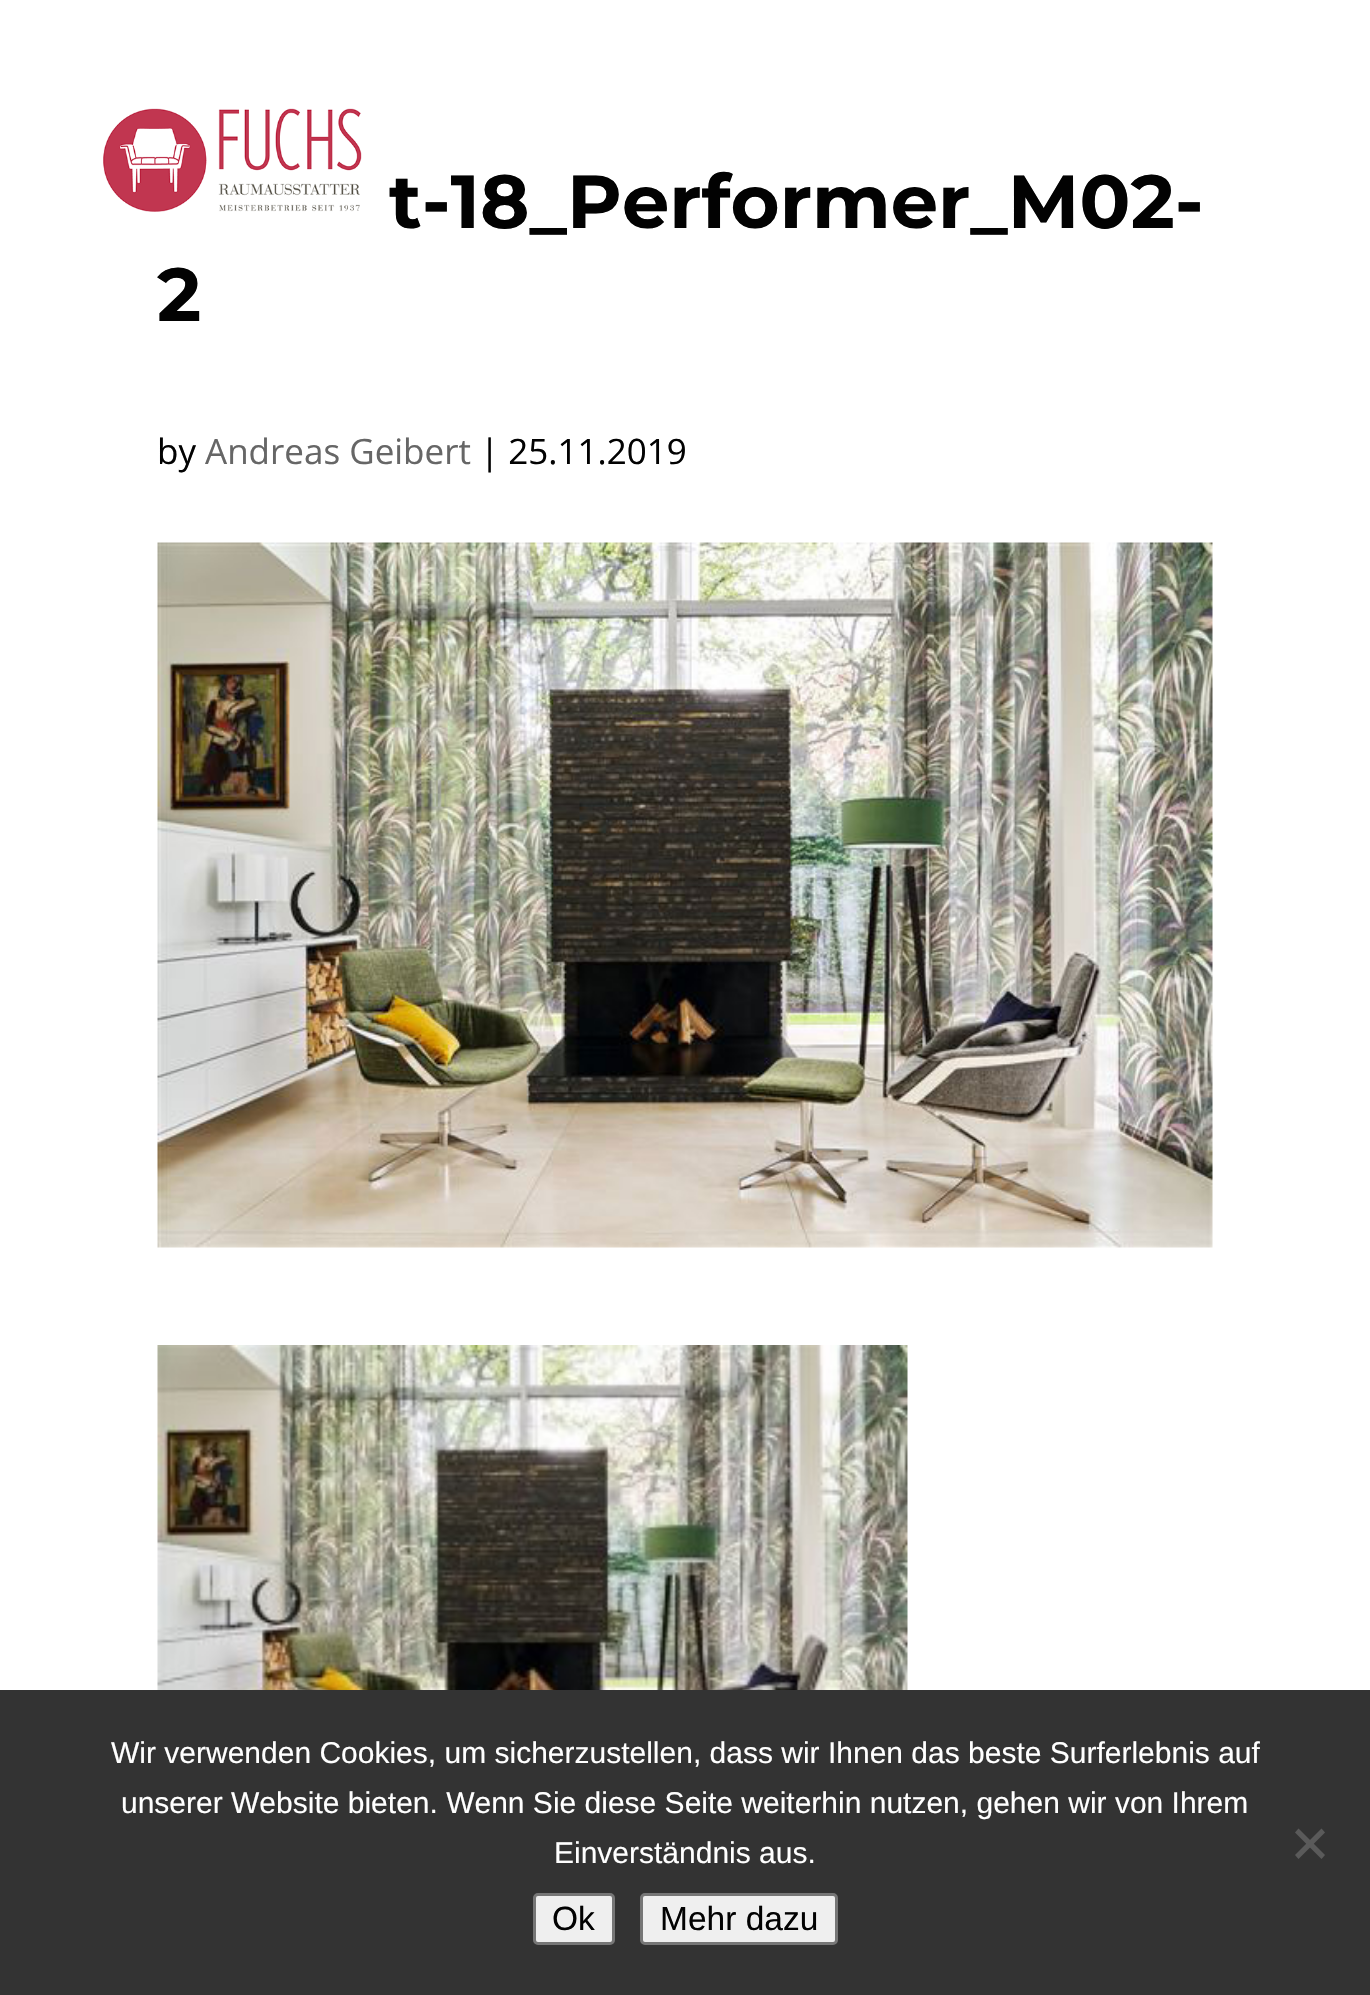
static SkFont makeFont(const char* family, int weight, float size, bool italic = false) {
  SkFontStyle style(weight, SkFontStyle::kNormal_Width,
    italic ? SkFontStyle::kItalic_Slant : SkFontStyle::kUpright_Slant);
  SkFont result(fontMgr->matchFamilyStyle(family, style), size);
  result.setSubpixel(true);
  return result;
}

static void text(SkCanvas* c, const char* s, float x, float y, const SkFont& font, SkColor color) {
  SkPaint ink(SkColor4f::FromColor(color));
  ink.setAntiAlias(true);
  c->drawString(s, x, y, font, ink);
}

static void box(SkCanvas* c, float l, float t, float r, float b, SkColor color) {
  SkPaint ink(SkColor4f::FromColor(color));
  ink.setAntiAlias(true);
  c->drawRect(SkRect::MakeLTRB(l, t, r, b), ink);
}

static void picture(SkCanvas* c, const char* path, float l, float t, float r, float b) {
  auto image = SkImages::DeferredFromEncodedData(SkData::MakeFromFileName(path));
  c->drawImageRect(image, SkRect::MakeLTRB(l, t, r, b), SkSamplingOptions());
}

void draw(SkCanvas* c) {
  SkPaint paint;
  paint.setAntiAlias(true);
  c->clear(0xffffffff);
  picture(c, "img_01.png", 103, 108, 383, 229);
  SkFont face1 = makeFont("Montserrat", 700, 75);
  text(c, "t-18_Performer_M02-", 389, 228, face1, 0xff020202);
  text(c, "2", 157, 321, face1, 0xff020202);
  SkFont face2 = makeFont("Open Sans", 400, 35);
  text(c, "by", 157, 464, face2, 0xff020202);
  text(c, "Andreas Geibert", 205, 464, face2, 0xff666666);
  text(c, "| 25.11.2019", 480, 464, face2, 0xff020202);
  picture(c, "img_02.png", 157, 542, 1213, 1248);
  picture(c, "img_03.png", 157, 1345, 908, 1690);
  box(c, 0, 1690, 1370, 1995, 0xff333333);
  SkFont face3 = makeFont("Liberation Sans", 400, 30);
  text(c, "Wir verwenden Cookies, um sicherzustellen, dass wir Ihnen das beste Surferlebnis auf", 111, 1763, face3, 0xffffffff);
  text(c, "unserer Website bieten. Wenn Sie diese Seite weiterhin nutzen, gehen wir von Ihrem", 121, 1813, face3, 0xffffffff);
  text(c, "Einverständnis aus.", 554, 1863, face3, 0xffffffff);
  paint.setColor(0xff5a5a5a);
  c->drawPath(SkPathBuilder().moveTo(1321.5f, 1828.5f).lineTo(1325, 1832.5f).lineTo(1298.5f, 1859).lineTo(1295, 1855).close().detach(), paint);
  c->drawPath(SkPathBuilder().moveTo(1295, 1832.5f).lineTo(1298.5f, 1828.5f).lineTo(1325, 1855).lineTo(1321.5f, 1859).close().detach(), paint);
  paint.setColor(0xffefefef);
  c->drawRoundRect(SkRect::MakeLTRB(534.5f, 1894.5f, 613.5f, 1943.5f), 3.5f, 3.5f, paint);
  paint.setStyle(SkPaint::kStroke_Style);
  paint.setStrokeWidth(3);
  paint.setColor(0xff767676);
  c->drawRoundRect(SkRect::MakeLTRB(534.5f, 1894.5f, 613.5f, 1943.5f), 3.5f, 3.5f, paint);
  SkFont face4 = makeFont("Liberation Sans", 400, 33.5f);
  text(c, "Ok", 552, 1930, face4, 0xff020202);
  paint.setStyle(SkPaint::kFill_Style);
  paint.setColor(0xffefefef);
  c->drawRoundRect(SkRect::MakeLTRB(641.5f, 1894.5f, 836.5f, 1943.5f), 3.5f, 3.5f, paint);
  paint.setStyle(SkPaint::kStroke_Style);
  paint.setColor(0xff767676);
  c->drawRoundRect(SkRect::MakeLTRB(641.5f, 1894.5f, 836.5f, 1943.5f), 3.5f, 3.5f, paint);
  text(c, "Mehr dazu", 660, 1930, face4, 0xff020202);
}
